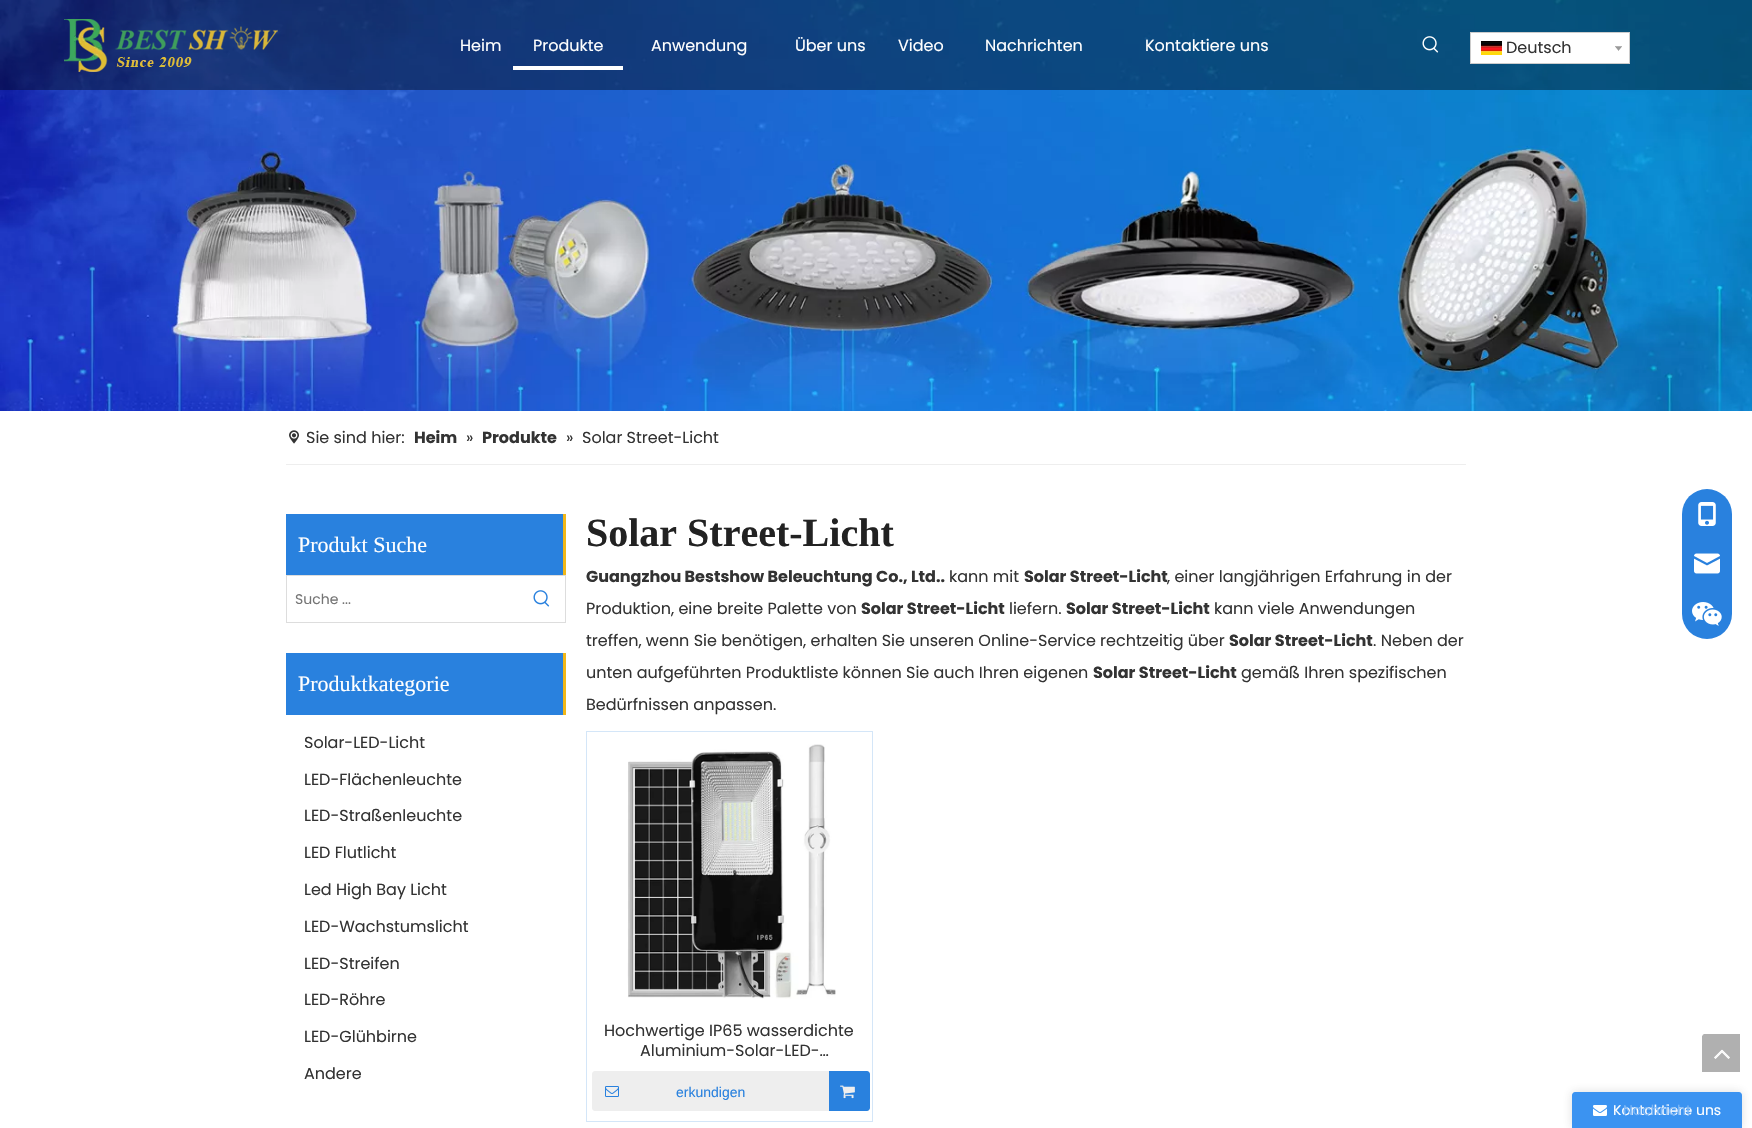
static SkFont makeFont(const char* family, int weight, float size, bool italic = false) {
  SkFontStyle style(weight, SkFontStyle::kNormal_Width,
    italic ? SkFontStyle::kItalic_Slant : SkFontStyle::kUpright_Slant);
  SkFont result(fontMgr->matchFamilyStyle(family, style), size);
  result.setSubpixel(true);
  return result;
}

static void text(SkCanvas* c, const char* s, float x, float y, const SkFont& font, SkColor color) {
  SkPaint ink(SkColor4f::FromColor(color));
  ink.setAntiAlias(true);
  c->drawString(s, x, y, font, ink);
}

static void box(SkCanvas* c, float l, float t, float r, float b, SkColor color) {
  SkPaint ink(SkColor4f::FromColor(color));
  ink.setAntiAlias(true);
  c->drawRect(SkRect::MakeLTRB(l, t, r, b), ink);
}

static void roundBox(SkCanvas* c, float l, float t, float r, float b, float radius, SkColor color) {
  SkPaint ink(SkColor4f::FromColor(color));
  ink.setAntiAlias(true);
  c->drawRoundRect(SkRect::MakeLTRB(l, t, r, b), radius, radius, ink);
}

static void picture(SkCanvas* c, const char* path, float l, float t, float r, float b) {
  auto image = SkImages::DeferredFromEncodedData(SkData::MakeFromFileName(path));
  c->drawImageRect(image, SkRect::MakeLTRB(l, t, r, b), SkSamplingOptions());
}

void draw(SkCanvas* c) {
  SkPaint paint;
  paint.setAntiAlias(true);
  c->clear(0xffffffff);
  picture(c, "img_05.png", 0, 0, 1752, 411);
  box(c, 0, 0, 1752, 90, 0x66000000);
  picture(c, "img_01.png", 64, 19, 278, 72);
  SkFont face1 = makeFont("Poppins", 400, 16);
  text(c, "Heim", 460, 51, face1, 0xffffffff);
  box(c, 513, 66, 623, 70, 0xffffffff);
  text(c, "Produkte", 533, 51, face1, 0xffffffff);
  text(c, "Anwendung", 651, 51, face1, 0xffffffff);
  text(c, "Über uns", 795, 51, face1, 0xffffffff);
  text(c, "Video", 898, 51, face1, 0xffffffff);
  text(c, "Nachrichten", 985, 51, face1, 0xffffffff);
  text(c, "Kontaktiere uns", 1145, 51, face1, 0xffffffff);
  picture(c, "img_02.png", 1422, 36, 1439, 53);
  paint.setColor(0xffffffff);
  c->drawRect(SkRect::MakeLTRB(1470.5f, 32.5f, 1629.5f, 63.5f), paint);
  paint.setStyle(SkPaint::kStroke_Style);
  paint.setStrokeWidth(1);
  paint.setColor(0xffcccccc);
  c->drawRect(SkRect::MakeLTRB(1470.5f, 32.5f, 1629.5f, 63.5f), paint);
  picture(c, "img_03.png", 1481, 41, 1502, 55);
  text(c, "Deutsch", 1506, 53, face1, 0xff333333);
  picture(c, "img_04.png", 1615, 46, 1622, 51);
  box(c, 286, 464, 1466, 465, 0xffeeeeee);
  picture(c, "img_06.png", 289, 430, 299, 444);
  text(c, "Sie sind hier:", 306, 443, face1, 0xff333333);
  SkFont face2 = makeFont("Poppins", 700, 16);
  text(c, "Heim", 414, 443, face2, 0xff333333);
  text(c, "»", 466, 443, face1, 0xff333333);
  text(c, "Produkte", 482, 443, face2, 0xff333333);
  text(c, "»", 566, 443, face1, 0xff333333);
  text(c, "Solar Street-Licht", 582, 443, face1, 0xff333333);
  box(c, 286, 514, 563, 575, 0xff2981de);
  box(c, 563, 514, 566, 575, 0xfff2b718);
  SkFont face3 = makeFont("Liberation Serif", 400, 22);
  text(c, "Produkt Suche", 298, 552, face3, 0xffffffff);
  paint.setColor(0xffdddddd);
  c->drawRect(SkRect::MakeLTRB(286.5f, 575.5f, 565.5f, 622.5f), paint);
  SkFont face4 = makeFont("Poppins", 400, 14);
  text(c, "Suche ...", 295, 604, face4, 0xff757575);
  picture(c, "img_07.png", 533, 590, 550, 607);
  box(c, 286, 653, 563, 715, 0xff2981de);
  box(c, 563, 653, 566, 715, 0xfff2b718);
  text(c, "Produktkategorie", 298, 691, face3, 0xffffffff);
  text(c, "Solar-LED-Licht", 304, 748, face1, 0xff333333);
  text(c, "LED-Flächenleuchte", 304, 785, face1, 0xff333333);
  text(c, "LED-Straßenleuchte", 304, 821, face1, 0xff333333);
  text(c, "LED Flutlicht", 304, 858, face1, 0xff333333);
  text(c, "Led High Bay Licht", 304, 895, face1, 0xff333333);
  text(c, "LED-Wachstumslicht", 304, 932, face1, 0xff333333);
  text(c, "LED-Streifen", 304, 969, face1, 0xff333333);
  text(c, "LED-Röhre", 304, 1005, face1, 0xff333333);
  text(c, "LED-Glühbirne", 304, 1042, face1, 0xff333333);
  text(c, "Andere", 304, 1079, face1, 0xff333333);
  SkFont face5 = makeFont("Liberation Serif", 700, 40);
  text(c, "Solar Street-Licht", 586, 546, face5, 0xff222222);
  text(c, "Guangzhou Bestshow Beleuchtung Co., Ltd..", 586, 582, face2, 0xff333333);
  text(c, "kann mit", 949, 582, face1, 0xff333333);
  text(c, "Solar Street-Licht", 1024, 582, face2, 0xff333333);
  text(c, ", einer langjährigen Erfahrung in der", 1167, 582, face1, 0xff333333);
  text(c, "Produktion, eine breite Palette von", 586, 614, face1, 0xff333333);
  text(c, "Solar Street-Licht", 861, 614, face2, 0xff333333);
  text(c, "liefern.", 1009, 614, face1, 0xff333333);
  text(c, "Solar Street-Licht", 1066, 614, face2, 0xff333333);
  text(c, "kann viele Anwendungen", 1214, 614, face1, 0xff333333);
  text(c, "treffen, wenn Sie benötigen, erhalten Sie unseren Online-Service rechtzeitig über", 586, 646, face1, 0xff333333);
  text(c, "Solar Street-Licht", 1229, 646, face2, 0xff333333);
  text(c, ". Neben der", 1373, 646, face1, 0xff333333);
  text(c, "unten aufgeführten Produktliste können Sie auch Ihren eigenen", 586, 678, face1, 0xff333333);
  text(c, "Solar Street-Licht", 1093, 678, face2, 0xff333333);
  text(c, "gemäß Ihren spezifischen", 1241, 678, face1, 0xff333333);
  text(c, "Bedürfnissen anpassen.", 586, 710, face1, 0xff333333);
  paint.setColor(0xffd4e6f8);
  c->drawRect(SkRect::MakeLTRB(586.5f, 731.5f, 872.5f, 1121.5f), paint);
  picture(c, "img_08.png", 627, 744, 836, 999);
  text(c, "Hochwertige IP65 wasserdichte", 604, 1036, face1, 0xff333333);
  text(c, "Aluminium-Solar-LED-…", 640, 1056, face1, 0xff333333);
  paint.setStyle(SkPaint::kFill_Style);
  paint.setColor(0xffeeeeee);
  c->drawRoundRect(SkRect::MakeLTRB(592.5f, 1071.5f, 868.5f, 1110.5f), 2.5f, 2.5f, paint);
  paint.setStyle(SkPaint::kStroke_Style);
  c->drawRoundRect(SkRect::MakeLTRB(592.5f, 1071.5f, 868.5f, 1110.5f), 2.5f, 2.5f, paint);
  picture(c, "img_09.png", 605, 1086, 619, 1097);
  SkFont face6 = makeFont("Liberation Sans", 400, 14);
  text(c, "erkundigen", 676, 1097, face6, 0xff2981de);
  paint.setStyle(SkPaint::kFill_Style);
  paint.setColor(0xff2981de);
  c->drawPath(SkPathBuilder().moveTo(829, 1071).lineTo(867, 1071).cubicTo(868.5f, 1071, 870, 1072.5f, 870, 1074).lineTo(870, 1108).cubicTo(870, 1109.5f, 868.5f, 1111, 867, 1111).lineTo(829, 1111).close().detach(), paint);
  picture(c, "img_10.png", 840, 1085, 855, 1099);
  picture(c, "img_11.png", 1702, 1034, 1740, 1072);
  roundBox(c, 1682, 489, 1732, 639, 25, 0xff2981de);
  picture(c, "img_12.png", 1698, 502, 1716, 526);
  picture(c, "img_13.png", 1694, 553, 1720, 574);
  picture(c, "img_14.png", 1692, 602, 1722, 626);
  paint.setColor(0x2e444444);
  paint.setMaskFilter(SkMaskFilter::MakeBlur(kNormal_SkBlurStyle, 5));
  c->drawRoundRect(SkRect::MakeLTRB(1572, 1092, 1742, 1128), 3, 3, paint);
  paint.setMaskFilter(nullptr);
  paint.setColor(0xff3b93f1);
  c->drawPath(SkPathBuilder().moveTo(1575, 1092).lineTo(1739, 1092).cubicTo(1740.5f, 1092, 1742, 1093.5f, 1742, 1095).lineTo(1742, 1128).lineTo(1572, 1128).lineTo(1572, 1095).cubicTo(1572, 1093.5f, 1573.5f, 1092, 1575, 1092).close().detach(), paint);
  text(c, "Kontaktiere uns", 1613, 1115, face4, 0xffffffff);
  picture(c, "img_15.png", 1593, 1105, 1607, 1116);
  text(c, "Nachricht", 1623, 1115, face4, 0xff7bb6f6);
}
